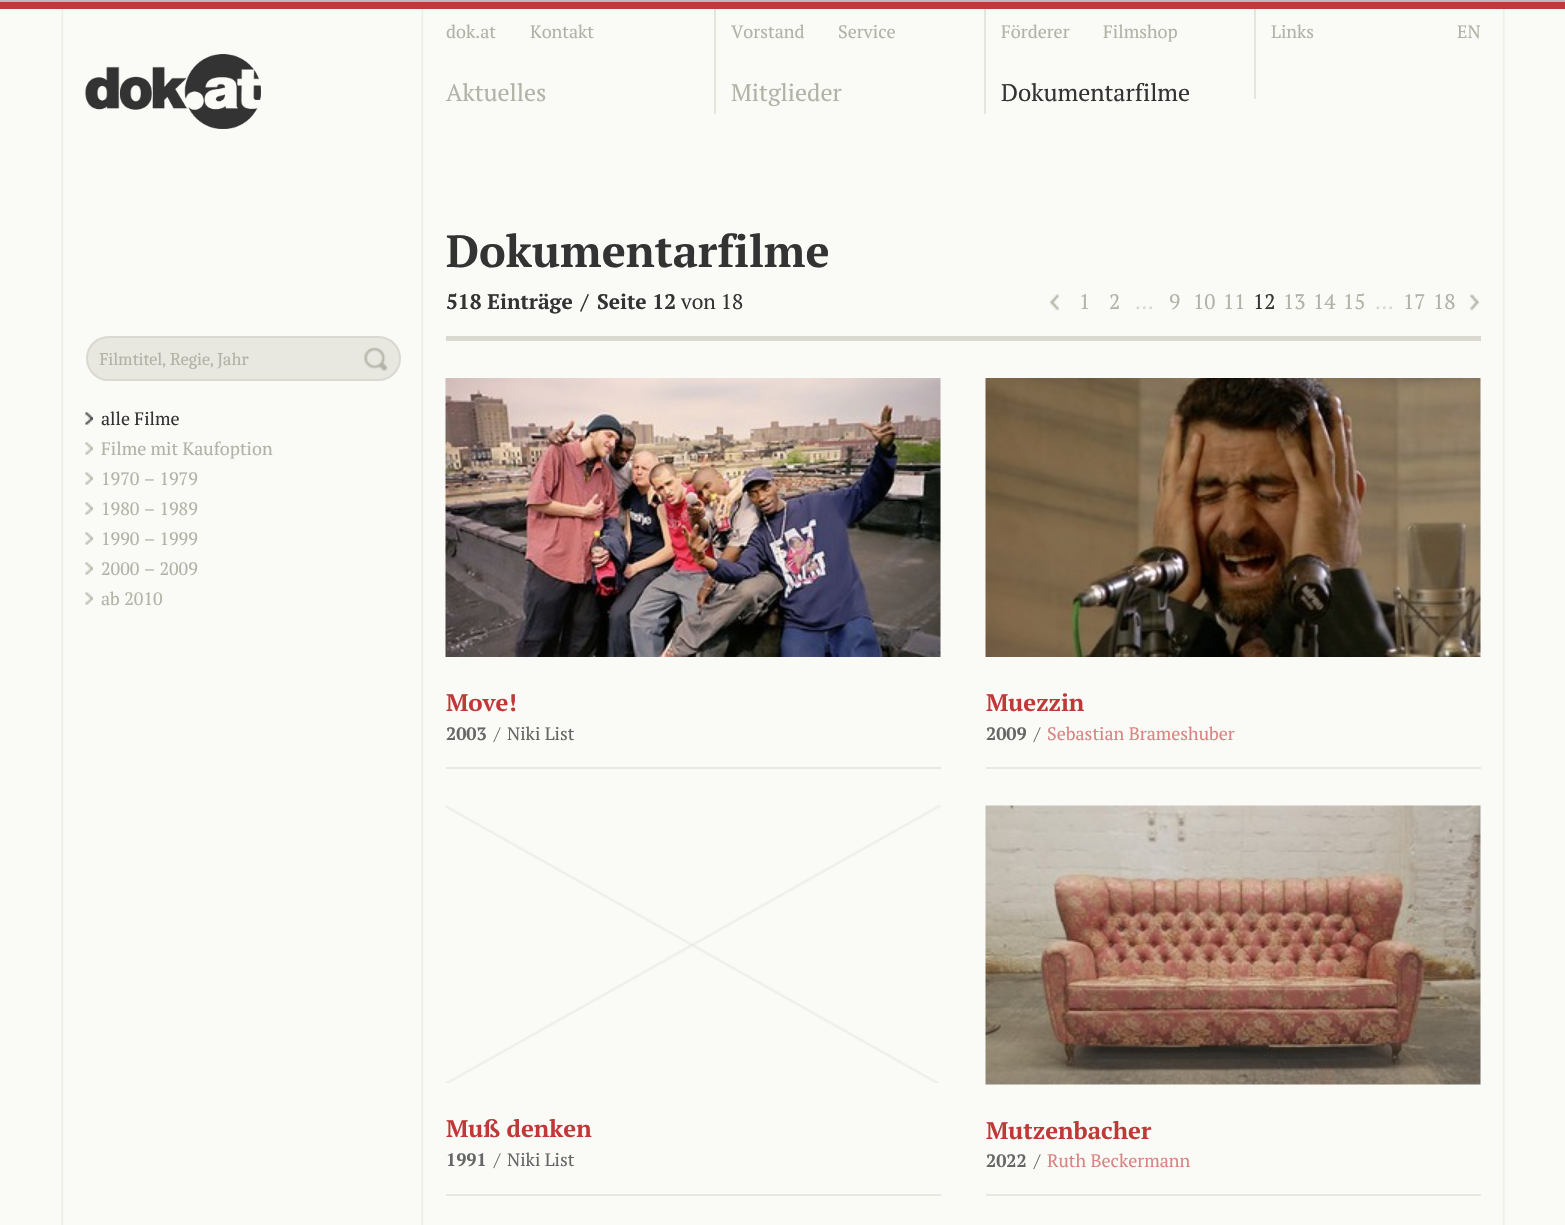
static SkFont makeFont(const char* family, int weight, float size, bool italic = false) {
  SkFontStyle style(weight, SkFontStyle::kNormal_Width,
    italic ? SkFontStyle::kItalic_Slant : SkFontStyle::kUpright_Slant);
  SkFont result(fontMgr->matchFamilyStyle(family, style), size);
  result.setSubpixel(true);
  return result;
}

static void text(SkCanvas* c, const char* s, float x, float y, const SkFont& font, SkColor color) {
  SkPaint ink(SkColor4f::FromColor(color));
  ink.setAntiAlias(true);
  c->drawString(s, x, y, font, ink);
}

static void box(SkCanvas* c, float l, float t, float r, float b, SkColor color) {
  SkPaint ink(SkColor4f::FromColor(color));
  ink.setAntiAlias(true);
  c->drawRect(SkRect::MakeLTRB(l, t, r, b), ink);
}

static void picture(SkCanvas* c, const char* path, float l, float t, float r, float b) {
  auto image = SkImages::DeferredFromEncodedData(SkData::MakeFromFileName(path));
  c->drawImageRect(image, SkRect::MakeLTRB(l, t, r, b), SkSamplingOptions());
}

void draw(SkCanvas* c) {
  SkPaint paint;
  paint.setAntiAlias(true);
  c->clear(0xfffafaf7);
  picture(c, "img_01.png", 61, 9, 1505, 1225);
  box(c, 0, 0, 1565, 2, 0xffbbbbbb);
  box(c, 0, 2, 1565, 9, 0xffbf3939);
  picture(c, "img_02.png", 85, 54, 261, 129);
  SkFont face1 = makeFont("PT Serif", 400, 18);
  text(c, "dok.at", 446, 38, face1, 0xffb2b3a6);
  text(c, "Kontakt", 530, 38, face1, 0xffb2b3a6);
  text(c, "Vorstand", 731, 38, face1, 0xffb2b3a6);
  text(c, "Service", 838, 38, face1, 0xffb2b3a6);
  text(c, "Förderer", 1001, 38, face1, 0xffb2b3a6);
  text(c, "Filmshop", 1103, 38, face1, 0xffb2b3a6);
  text(c, "Links", 1271, 38, face1, 0xffb2b3a6);
  text(c, "EN", 1457, 38, face1, 0xffb2b3a6);
  SkFont face2 = makeFont("PT Serif", 400, 24);
  text(c, "Aktuelles", 446, 101, face2, 0xffb2b3a6);
  box(c, 714, 9, 716, 114, 0xffe5e5dc);
  text(c, "Mitglieder", 731, 101, face2, 0xffb2b3a6);
  box(c, 984, 9, 986, 114, 0xffe5e5dc);
  text(c, "Dokumentarfilme", 1001, 101, face2, 0xff333333);
  box(c, 1254, 9, 1256, 99, 0xffe5e5dc);
  SkFont face3 = makeFont("PT Serif", 700, 45);
  text(c, "Dokumentarfilme", 446, 267, face3, 0xff333333);
  SkFont face4 = makeFont("PT Serif", 700, 21);
  text(c, "518 Einträge", 446, 309, face4, 0xff333333);
  text(c, "/", 581, 309, face4, 0xff333333);
  text(c, "Seite 12", 597, 309, face4, 0xff333333);
  SkFont face5 = makeFont("PT Serif", 400, 21);
  text(c, "von 18", 681, 309, face5, 0xff333333);
  picture(c, "img_03.png", 1050, 294, 1059, 311);
  text(c, "1", 1079, 309, face5, 0xffb2b3a6);
  text(c, "2", 1109, 309, face5, 0xffb2b3a6);
  text(c, "…", 1135, 309, face5, 0xffd8d9d0);
  text(c, "9", 1169, 309, face5, 0xffb2b3a6);
  text(c, "10", 1193, 309, face5, 0xffb2b3a6);
  text(c, "11", 1223, 309, face5, 0xffb2b3a6);
  text(c, "12", 1253, 309, face5, 0xff333333);
  text(c, "13", 1283, 309, face5, 0xffb2b3a6);
  text(c, "14", 1313, 309, face5, 0xffb2b3a6);
  text(c, "15", 1343, 309, face5, 0xffb2b3a6);
  text(c, "…", 1375, 309, face5, 0xffd8d9d0);
  text(c, "17", 1403, 309, face5, 0xffb2b3a6);
  text(c, "18", 1433, 309, face5, 0xffb2b3a6);
  picture(c, "img_04.png", 1470, 294, 1479, 311);
  box(c, 446, 336, 1481, 341, 0xffd9d9d0);
  paint.setColor(0xffe8e8e1);
  c->drawRoundRect(SkRect::MakeLTRB(87, 337, 400, 380), 21.5f, 21.5f, paint);
  paint.setStyle(SkPaint::kStroke_Style);
  paint.setStrokeWidth(2);
  paint.setColor(0xffd9d9d0);
  c->drawRoundRect(SkRect::MakeLTRB(87, 337, 400, 380), 21.5f, 21.5f, paint);
  SkFont face6 = makeFont("Caladea", 400, 18);
  text(c, "Filmtitel, Regie, Jahr", 99, 365, face6, 0xffb2b3a6);
  picture(c, "img_05.png", 364, 347, 388, 371);
  picture(c, "img_06.png", 85, 412, 93, 425);
  text(c, "alle Filme", 101, 425, face1, 0xff333333);
  picture(c, "img_07.png", 85, 442, 93, 455);
  text(c, "Filme mit Kaufoption", 101, 455, face1, 0xffb2b3a6);
  picture(c, "img_07.png", 85, 472, 93, 485);
  text(c, "1970 – 1979", 101, 485, face1, 0xffb2b3a6);
  picture(c, "img_07.png", 85, 502, 93, 515);
  text(c, "1980 – 1989", 101, 515, face1, 0xffb2b3a6);
  picture(c, "img_07.png", 85, 532, 93, 545);
  text(c, "1990 – 1999", 101, 545, face1, 0xffb2b3a6);
  picture(c, "img_07.png", 85, 562, 93, 575);
  text(c, "2000 – 2009", 101, 575, face1, 0xffb2b3a6);
  picture(c, "img_07.png", 85, 592, 93, 605);
  text(c, "ab 2010", 101, 605, face1, 0xffb2b3a6);
  picture(c, "img_08.png", 445, 378, 941, 657);
  SkFont face7 = makeFont("PT Serif", 700, 24);
  text(c, "Move!", 446, 711, face7, 0xffbf3939);
  SkFont face8 = makeFont("PT Serif", 700, 18);
  text(c, "2003", 446, 740, face8, 0xff666666);
  text(c, "/", 494, 740, face1, 0xff666666);
  text(c, "Niki List", 507, 740, face1, 0xff666666);
  picture(c, "img_09.png", 985, 378, 1481, 657);
  text(c, "Muezzin", 986, 711, face7, 0xffbf3939);
  text(c, "2009", 986, 740, face8, 0xff666666);
  text(c, "/", 1034, 740, face1, 0xff666666);
  text(c, "Sebastian Brameshuber", 1047, 740, face1, 0xffda8484);
  box(c, 446, 767, 941, 769, 0xffe8e8e1);
  picture(c, "img_10.png", 445, 805, 941, 1083);
  text(c, "Muß denken", 446, 1137, face7, 0xffbf3939);
  text(c, "1991", 446, 1166, face8, 0xff666666);
  text(c, "/", 494, 1166, face1, 0xff666666);
  text(c, "Niki List", 507, 1166, face1, 0xff666666);
  box(c, 986, 767, 1481, 769, 0xffe8e8e1);
  picture(c, "img_11.png", 985, 805, 1481, 1085);
  text(c, "Mutzenbacher", 986, 1139, face7, 0xffbf3939);
  text(c, "2022", 986, 1167, face8, 0xff666666);
  text(c, "/", 1034, 1167, face1, 0xff666666);
  text(c, "Ruth Beckermann", 1047, 1167, face1, 0xffda8484);
  box(c, 446, 1194, 941, 1196, 0xffe8e8e1);
  box(c, 986, 1194, 1481, 1196, 0xffe8e8e1);
}
